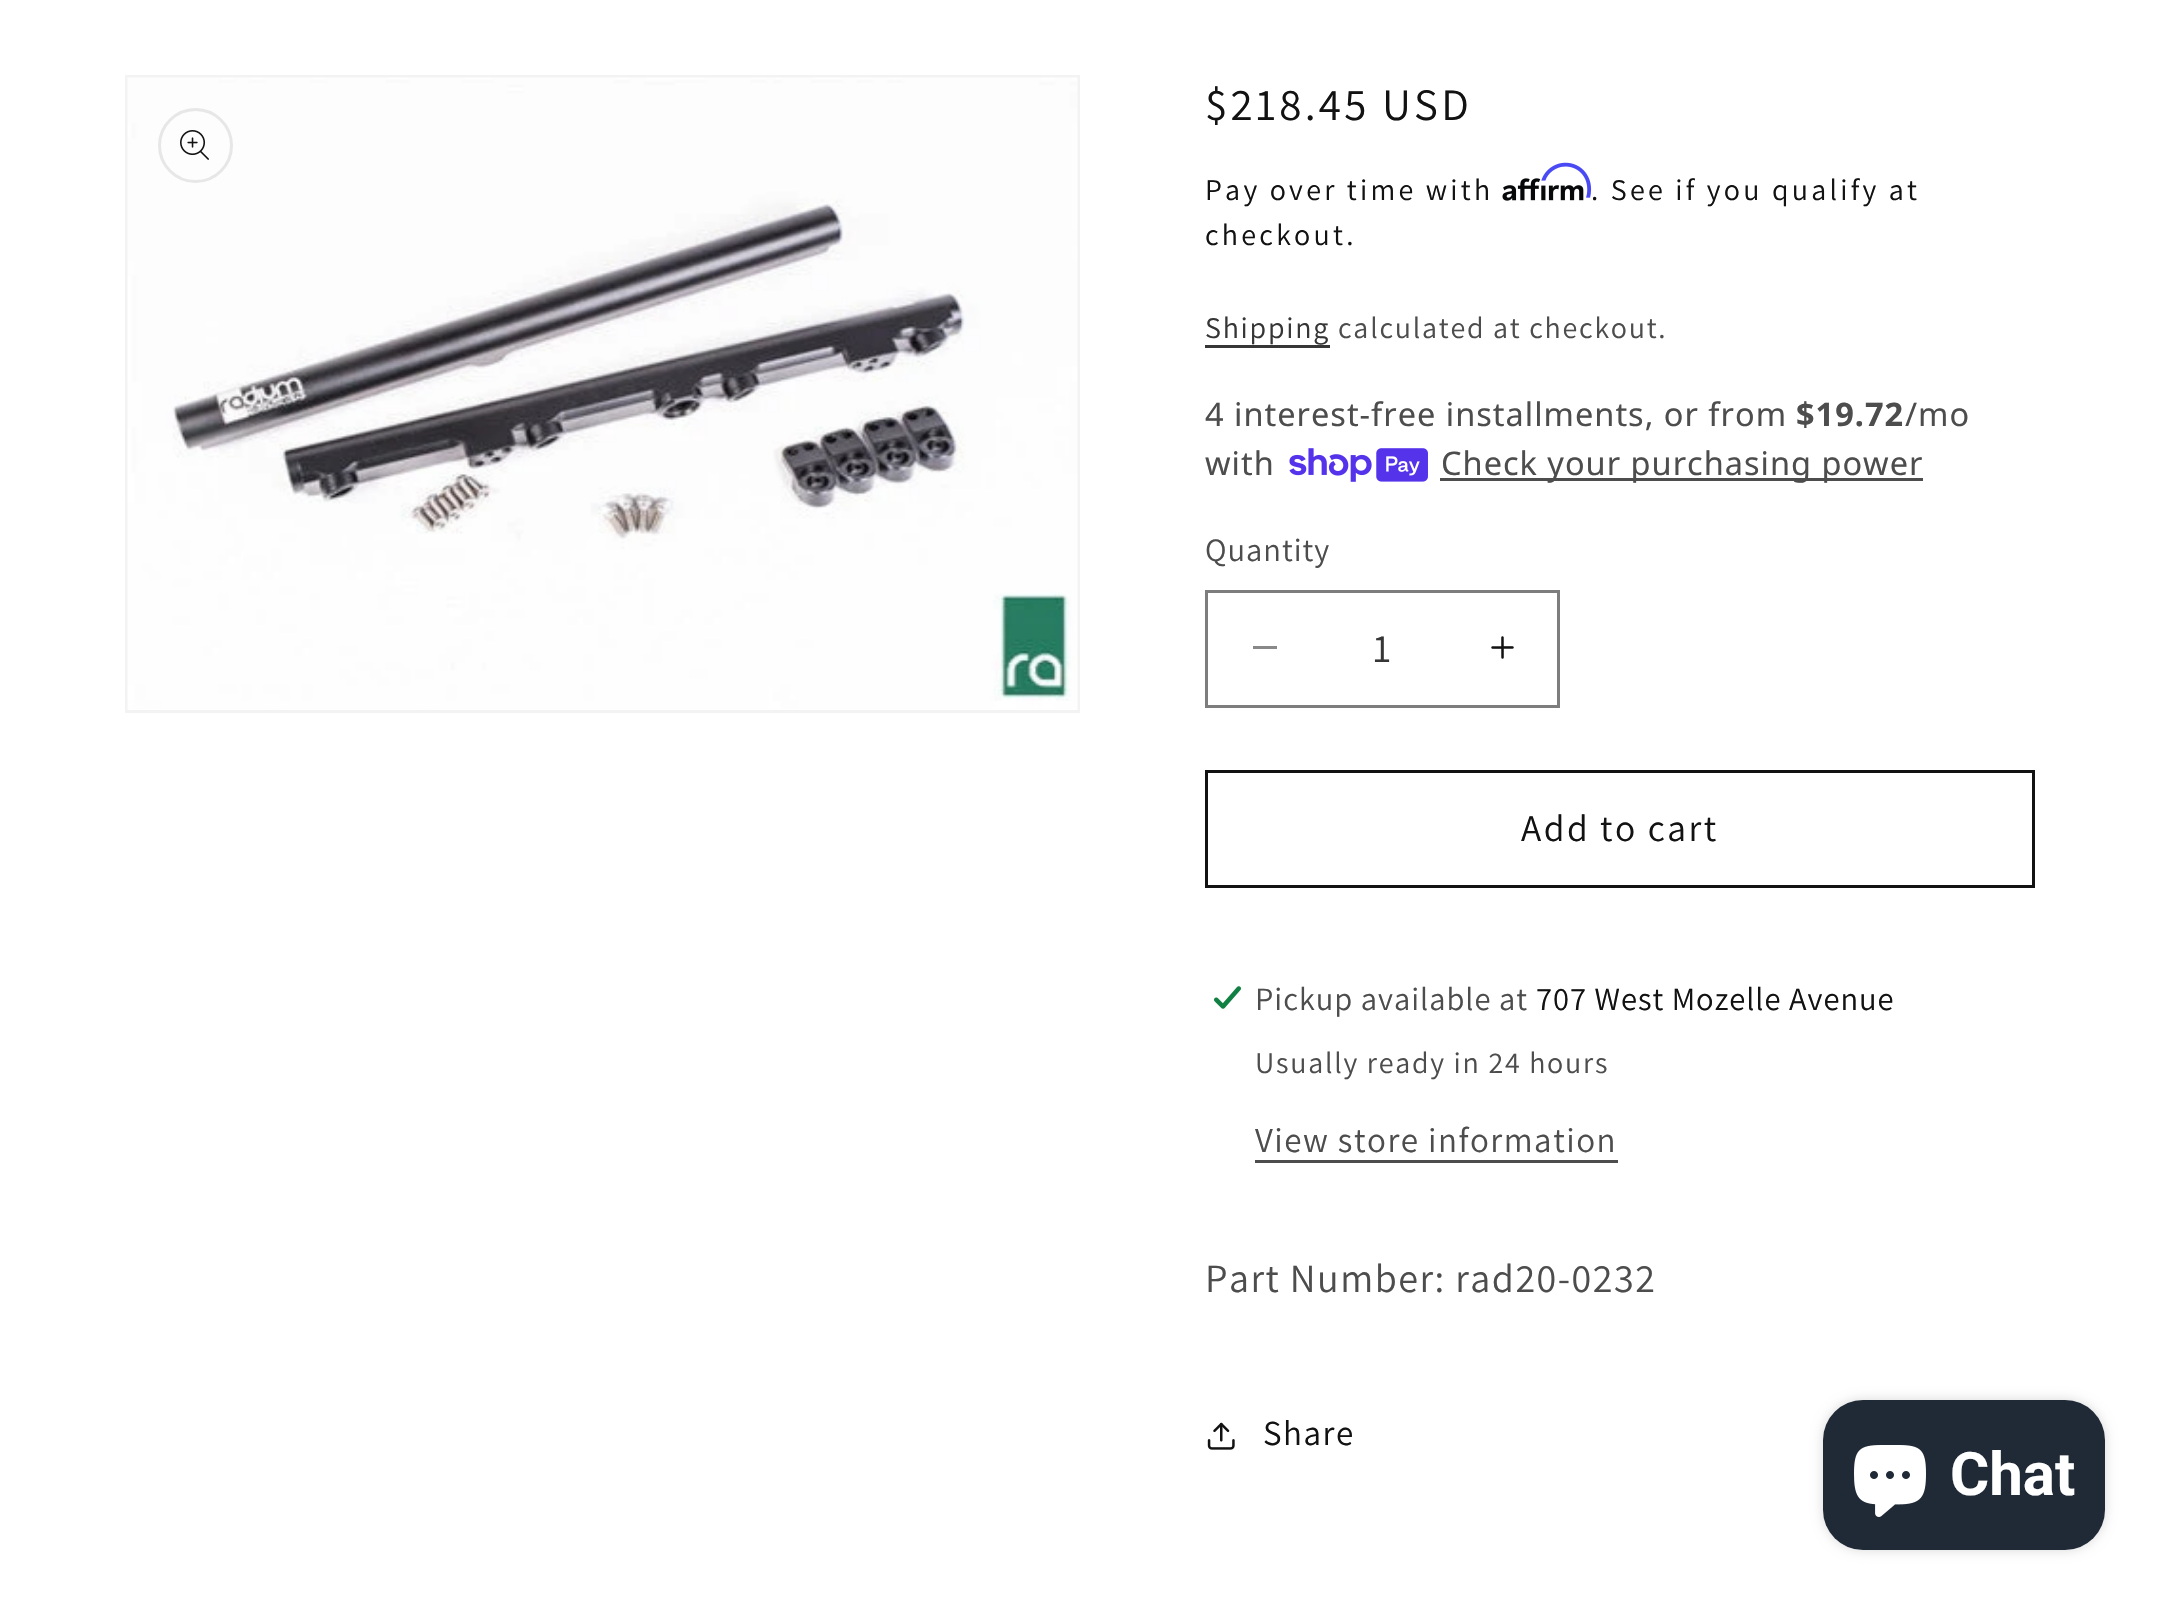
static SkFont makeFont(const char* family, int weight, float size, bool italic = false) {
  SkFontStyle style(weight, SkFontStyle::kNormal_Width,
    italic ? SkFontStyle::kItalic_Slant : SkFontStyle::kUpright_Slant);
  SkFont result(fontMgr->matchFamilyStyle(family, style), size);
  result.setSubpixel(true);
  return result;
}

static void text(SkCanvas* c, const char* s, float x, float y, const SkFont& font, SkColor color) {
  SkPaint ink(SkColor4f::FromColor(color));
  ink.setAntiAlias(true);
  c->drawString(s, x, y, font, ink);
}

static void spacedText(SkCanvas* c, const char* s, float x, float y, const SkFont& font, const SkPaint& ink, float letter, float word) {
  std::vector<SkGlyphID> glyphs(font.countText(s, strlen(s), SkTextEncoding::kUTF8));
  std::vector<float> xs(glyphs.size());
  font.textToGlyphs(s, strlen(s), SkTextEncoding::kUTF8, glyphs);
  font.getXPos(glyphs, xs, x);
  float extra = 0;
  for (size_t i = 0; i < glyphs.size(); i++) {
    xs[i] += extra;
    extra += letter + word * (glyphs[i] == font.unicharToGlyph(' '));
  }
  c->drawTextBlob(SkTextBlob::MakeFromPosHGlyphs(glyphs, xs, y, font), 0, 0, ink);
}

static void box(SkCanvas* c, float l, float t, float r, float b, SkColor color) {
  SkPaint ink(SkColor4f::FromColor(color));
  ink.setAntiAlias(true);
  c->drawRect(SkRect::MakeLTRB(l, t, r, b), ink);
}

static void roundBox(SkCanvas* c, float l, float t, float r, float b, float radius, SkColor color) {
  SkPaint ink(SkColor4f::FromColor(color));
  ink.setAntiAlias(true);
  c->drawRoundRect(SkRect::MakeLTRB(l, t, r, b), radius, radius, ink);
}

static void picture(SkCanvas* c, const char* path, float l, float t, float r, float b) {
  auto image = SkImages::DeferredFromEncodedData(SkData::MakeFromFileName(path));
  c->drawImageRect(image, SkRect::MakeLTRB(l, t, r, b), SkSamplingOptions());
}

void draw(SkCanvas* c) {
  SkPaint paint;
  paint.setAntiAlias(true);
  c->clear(0xffffffff);
  paint.setStyle(SkPaint::kStroke_Style);
  paint.setStrokeWidth(3);
  paint.setColor(0xfff3f3f3);
  c->drawRect(SkRect::MakeLTRB(126.5f, 76.5f, 1078.5f, 711.5f), paint);
  picture(c, "img_01.png", 127, 77, 1078, 710);
  paint.setColor(0xffe7e7e7);
  c->drawCircle(195.5f, 145.5f, 36, paint);
  picture(c, "img_02.png", 180, 130, 209, 160);
  SkFont face1 = makeFont("Assistant", 400, 45);
  paint.setStyle(SkPaint::kFill_Style);
  paint.setColor(0xff121212);
  spacedText(c, "$218.45 USD", 1205, 120, face1, paint, 3.25f, 0);
  SkFont face2 = makeFont("Assistant", 400, 30);
  spacedText(c, "Pay over time with", 1205, 200, face2, paint, 3.25f, 0);
  picture(c, "img_04.png", 1502, 178, 1584, 201);
  picture(c, "img_03.png", 1541, 162, 1592, 198);
  spacedText(c, ". See if you qualify at", 1591, 200, face2, paint, 3.25f, 0);
  spacedText(c, "checkout.", 1205, 245, face2, paint, 3.25f, 0);
  paint.setColor(0xff363636);
  spacedText(c, "Shipping", 1205, 338, face2, paint, 1.75f, 0);
  box(c, 1205, 345, 1330, 348, 0xff363636);
  paint.setColor(0xff4d4d4d);
  spacedText(c, "calculated at checkout.", 1338, 338, face2, paint, 1.75f, 0);
  SkFont face3 = makeFont("Noto Sans", 400, 32.5f);
  spacedText(c, "4 interest-free installments, or from", 1205, 426, face3, paint, 1, 0);
  SkFont face4 = makeFont("Noto Sans", 700, 32.5f);
  spacedText(c, "$19.72", 1796, 426, face4, paint, 1, 0);
  spacedText(c, "/mo", 1905, 426, face3, paint, 1, 0);
  spacedText(c, "with", 1205, 475, face3, paint, 1, 0);
  picture(c, "img_05.png", 1289, 448, 1428, 482);
  box(c, 1440, 478, 1923, 481, 0xff4d4d4d);
  spacedText(c, "Check your purchasing power", 1441, 475, face3, paint, 1, 0);
  SkFont face5 = makeFont("Assistant", 400, 32.5f);
  spacedText(c, "Quantity", 1205, 561, face5, paint, 1, 0);
  box(c, 1253, 646, 1277, 649, 0xff898989);
  picture(c, "img_06.png", 1491, 636, 1514, 659);
  paint.setStyle(SkPaint::kStroke_Style);
  paint.setColor(0xff7d7d7d);
  c->drawRect(SkRect::MakeLTRB(1206.5f, 591.5f, 1558.5f, 706.5f), paint);
  SkFont face6 = makeFont("Assistant", 400, 40);
  text(c, "1", 1373, 662, face6, 0xff363636);
  paint.setColor(0xff121212);
  c->drawRect(SkRect::MakeLTRB(1206.5f, 771.5f, 2033.5f, 886.5f), paint);
  SkFont face7 = makeFont("Assistant", 400, 37.5f);
  paint.setStyle(SkPaint::kFill_Style);
  spacedText(c, "Add to cart", 1521, 841, face7, paint, 2.5f, 0);
  picture(c, "img_07.png", 1214, 986, 1241, 1009);
  paint.setColor(0xff4d4d4d);
  spacedText(c, "Pickup available at", 1255, 1010, face5, paint, 1, 0);
  paint.setColor(0xff121212);
  spacedText(c, "707 West Mozelle Avenue", 1536, 1010, face5, paint, 1, 0);
  paint.setColor(0xff4d4d4d);
  spacedText(c, "Usually ready in 24 hours", 1255, 1073, face2, paint, 1.75f, 0);
  SkFont face8 = makeFont("Assistant", 400, 35);
  spacedText(c, "View store information", 1255, 1152, face8, paint, 1.5f, 0);
  box(c, 1255, 1160, 1618, 1163, 0xff4d4d4d);
  spacedText(c, "Part Number: rad20-0232", 1205, 1292, face6, paint, 1.5f, 0);
  picture(c, "img_08.png", 1207, 1422, 1235, 1450);
  paint.setColor(0xff121212);
  spacedText(c, "Share", 1263, 1445, face8, paint, 1.5f, 0);
  paint.setColor(0x26000000);
  paint.setMaskFilter(SkMaskFilter::MakeBlur(kNormal_SkBlurStyle, 6));
  c->drawRoundRect(SkRect::MakeLTRB(1823, 1400, 2105, 1550), 40, 40, paint);
  paint.setMaskFilter(nullptr);
  roundBox(c, 1823, 1400, 2105, 1550, 40, 0xff202a36);
  picture(c, "img_09.png", 1854, 1445, 1926, 1517);
  SkFont face9 = makeFont("Roboto", 700, 60);
  text(c, "Chat", 1950, 1495, face9, 0xffffffff);
}
